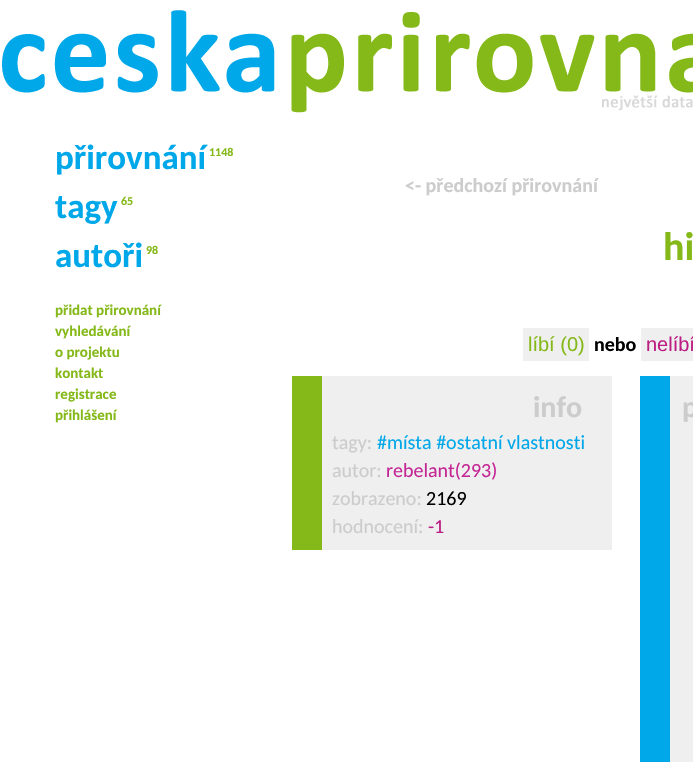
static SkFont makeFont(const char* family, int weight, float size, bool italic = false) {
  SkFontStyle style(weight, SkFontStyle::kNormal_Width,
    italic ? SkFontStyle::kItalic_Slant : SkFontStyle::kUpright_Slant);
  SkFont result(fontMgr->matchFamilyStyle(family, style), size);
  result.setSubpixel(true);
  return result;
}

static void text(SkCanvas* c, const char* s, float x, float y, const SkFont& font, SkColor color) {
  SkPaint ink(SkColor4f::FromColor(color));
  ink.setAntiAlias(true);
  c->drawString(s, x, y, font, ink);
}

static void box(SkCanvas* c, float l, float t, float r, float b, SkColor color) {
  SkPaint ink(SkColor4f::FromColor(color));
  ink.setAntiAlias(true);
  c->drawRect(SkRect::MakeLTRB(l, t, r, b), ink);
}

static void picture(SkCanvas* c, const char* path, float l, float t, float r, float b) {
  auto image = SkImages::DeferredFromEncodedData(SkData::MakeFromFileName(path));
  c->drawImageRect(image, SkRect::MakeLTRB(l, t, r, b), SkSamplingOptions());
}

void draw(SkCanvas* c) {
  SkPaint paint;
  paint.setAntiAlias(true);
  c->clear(0xffffffff);
  picture(c, "img_01.png", 2, 10, 693, 113);
  SkFont face1 = makeFont("Carlito", 700, 35);
  text(c, "přirovnání", 55, 169, face1, 0xff00a8e9);
  SkFont face2 = makeFont("Carlito", 700, 12);
  text(c, "1148", 209, 156, face2, 0xff85b919);
  text(c, "tagy", 55, 218, face1, 0xff00a8e9);
  text(c, "65", 121, 205, face2, 0xff85b919);
  text(c, "autoři", 55, 267, face1, 0xff00a8e9);
  text(c, "98", 146, 254, face2, 0xff85b919);
  SkFont face3 = makeFont("Carlito", 700, 15);
  text(c, "přidat přirovnání", 55, 315, face3, 0xff85b919);
  text(c, "vyhledávání", 55, 336, face3, 0xff85b919);
  text(c, "o projektu", 55, 357, face3, 0xff85b919);
  text(c, "kontakt", 55, 378, face3, 0xff85b919);
  text(c, "registrace", 55, 399, face3, 0xff85b919);
  text(c, "přihlášení", 55, 420, face3, 0xff85b919);
  SkFont face4 = makeFont("Carlito", 700, 20);
  text(c, "<- předchozí přirovnání", 405, 192, face4, 0xffcccccc);
  SkFont face5 = makeFont("Carlito", 700, 40);
  text(c, "hi", 663, 260, face5, 0xff85b919);
  box(c, 523, 328, 589, 361, 0xffefefef);
  SkFont face6 = makeFont("Liberation Sans", 400, 20);
  text(c, "líbí (0)", 528, 351, face6, 0xff85b919);
  text(c, "nebo", 594, 351, face4, 0xff000000);
  box(c, 641, 328, 693, 361, 0xffefefef);
  text(c, "nelíbí", 646, 351, face6, 0xffbc1d83);
  box(c, 322, 376, 612, 550, 0xffefefef);
  box(c, 292, 376, 322, 550, 0xff85b919);
  SkFont face7 = makeFont("Carlito", 700, 30);
  text(c, "info", 533, 417, face7, 0xffcccccc);
  SkFont face8 = makeFont("Carlito", 400, 20);
  text(c, "tagy:", 332, 449, face8, 0xffcccccc);
  text(c, "#místa #ostatní vlastnosti", 377, 449, face8, 0xff00a8e9);
  text(c, "autor:", 332, 477, face8, 0xffcccccc);
  text(c, "rebelant(293)", 386, 477, face8, 0xffc42695);
  text(c, "zobrazeno:", 332, 505, face8, 0xffcccccc);
  text(c, "2169", 426, 505, face8, 0xff000000);
  text(c, "hodnocení:", 332, 533, face8, 0xffcccccc);
  text(c, "-1", 428, 533, face8, 0xffbc1d83);
  box(c, 670, 376, 693, 762, 0xffefefef);
  box(c, 640, 376, 670, 762, 0xff00a8e9);
  text(c, "p", 682, 417, face7, 0xffcccccc);
}
